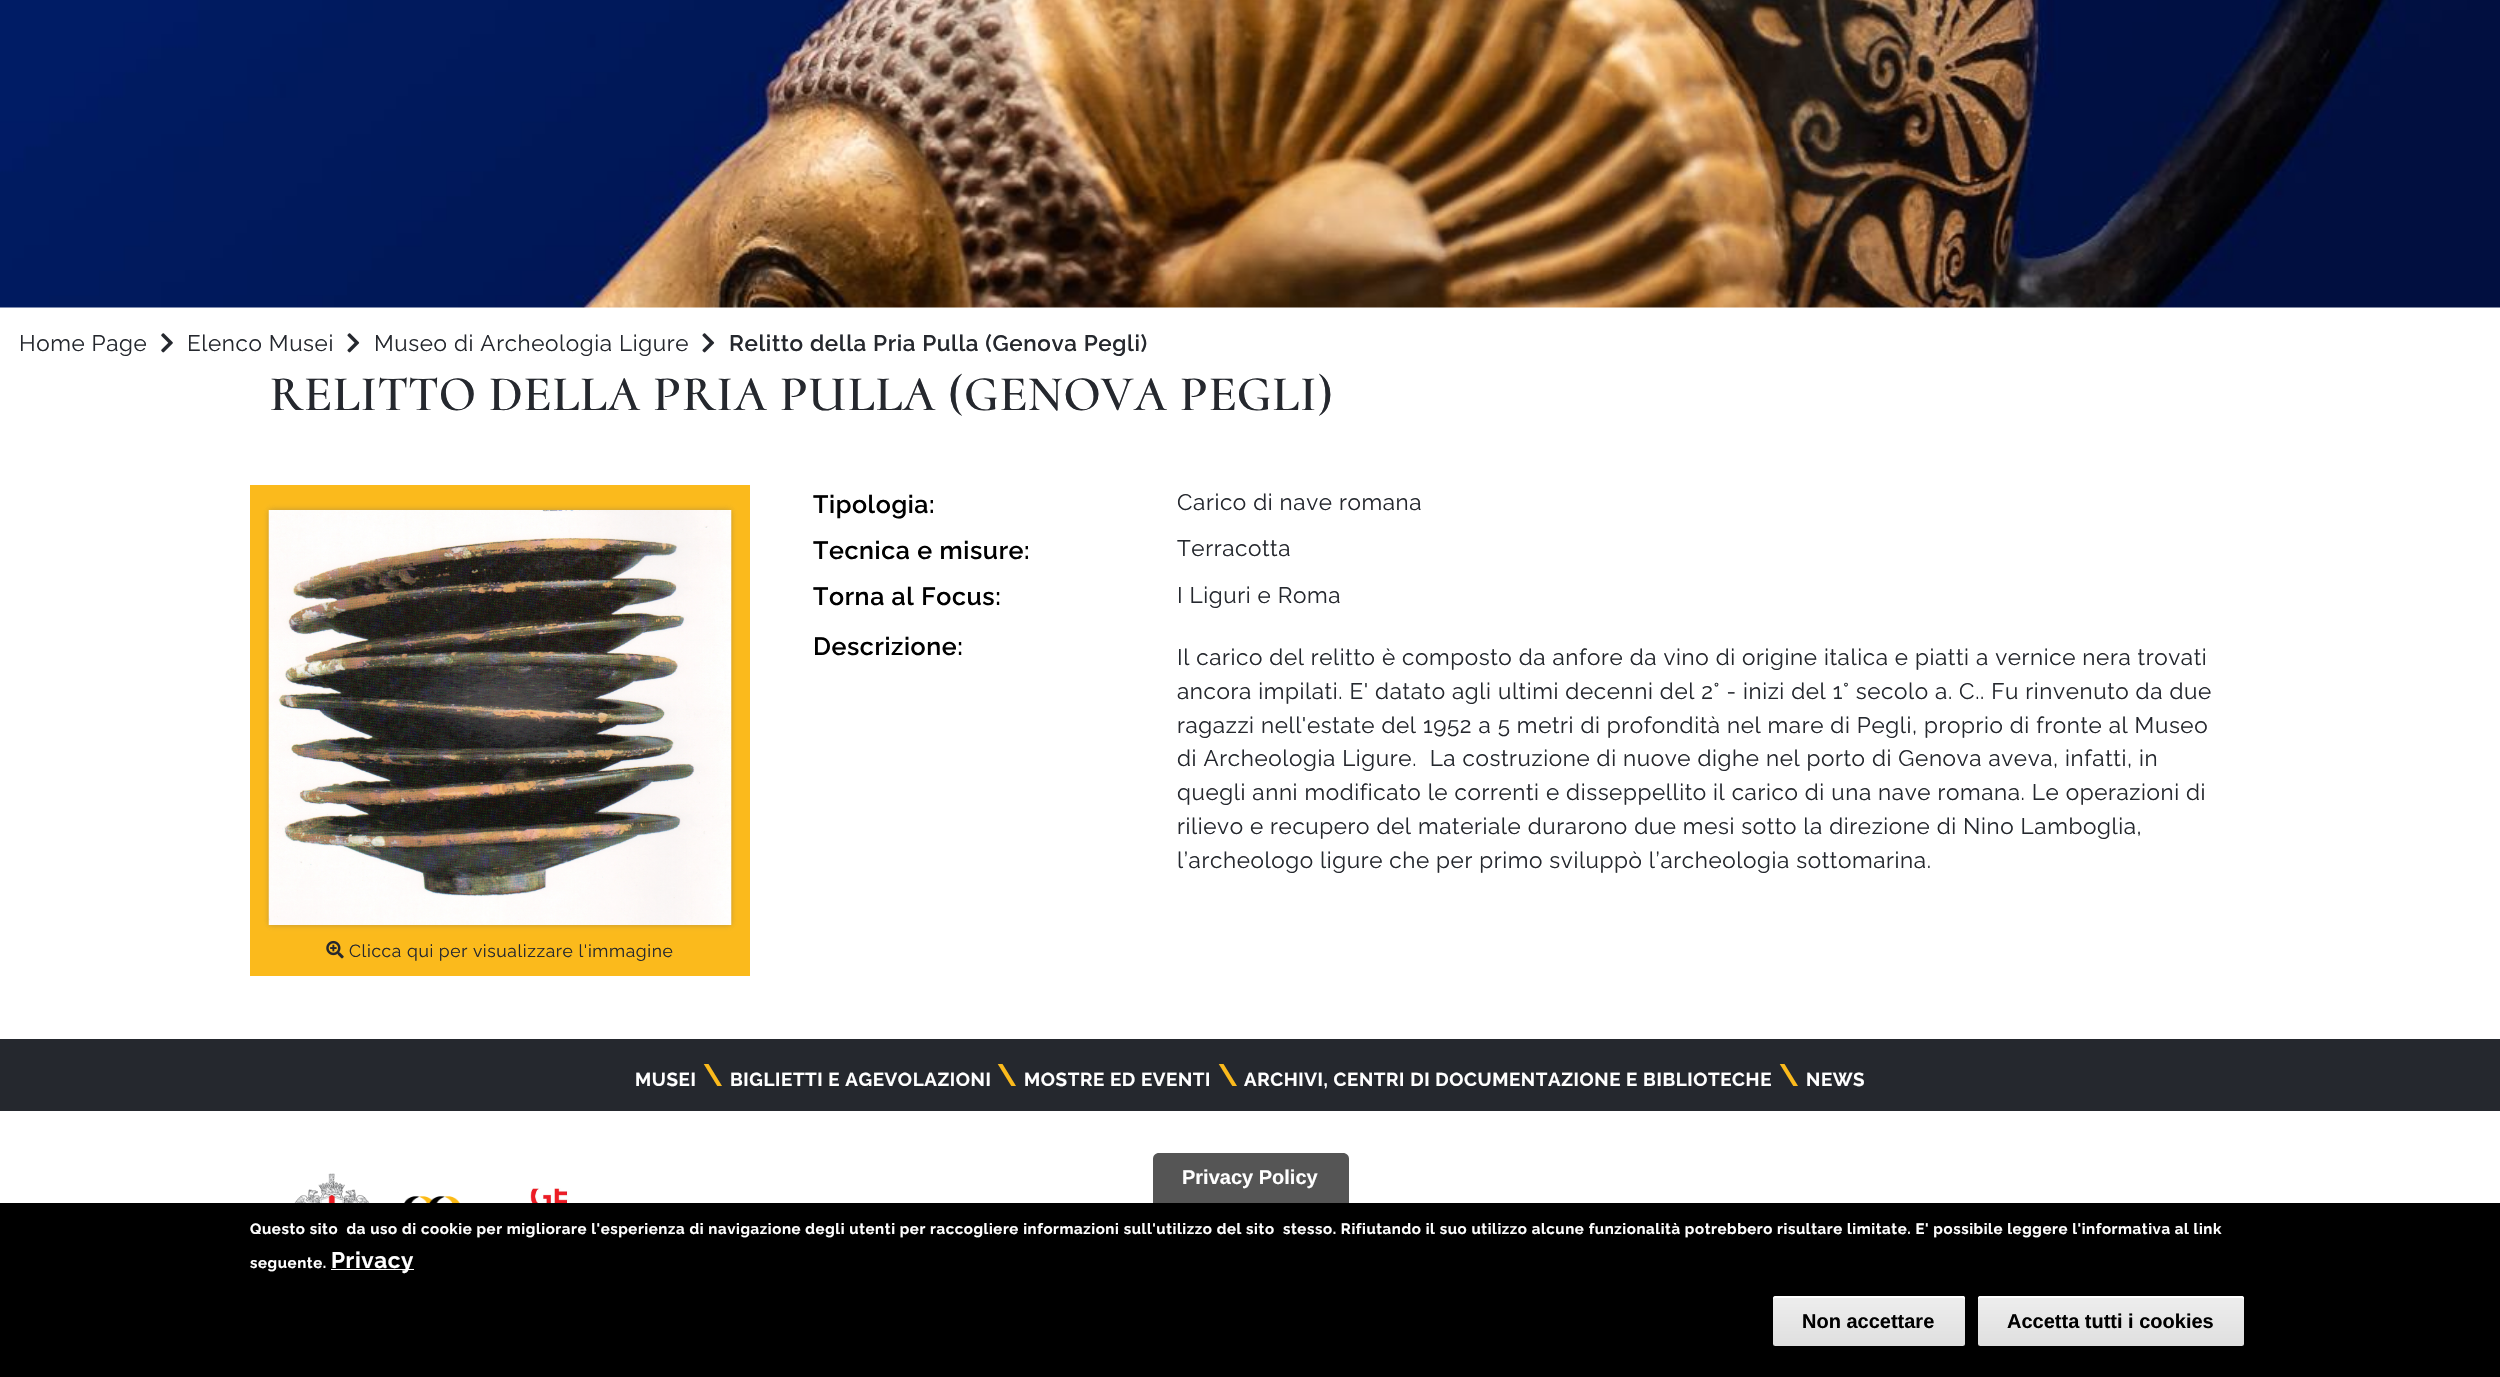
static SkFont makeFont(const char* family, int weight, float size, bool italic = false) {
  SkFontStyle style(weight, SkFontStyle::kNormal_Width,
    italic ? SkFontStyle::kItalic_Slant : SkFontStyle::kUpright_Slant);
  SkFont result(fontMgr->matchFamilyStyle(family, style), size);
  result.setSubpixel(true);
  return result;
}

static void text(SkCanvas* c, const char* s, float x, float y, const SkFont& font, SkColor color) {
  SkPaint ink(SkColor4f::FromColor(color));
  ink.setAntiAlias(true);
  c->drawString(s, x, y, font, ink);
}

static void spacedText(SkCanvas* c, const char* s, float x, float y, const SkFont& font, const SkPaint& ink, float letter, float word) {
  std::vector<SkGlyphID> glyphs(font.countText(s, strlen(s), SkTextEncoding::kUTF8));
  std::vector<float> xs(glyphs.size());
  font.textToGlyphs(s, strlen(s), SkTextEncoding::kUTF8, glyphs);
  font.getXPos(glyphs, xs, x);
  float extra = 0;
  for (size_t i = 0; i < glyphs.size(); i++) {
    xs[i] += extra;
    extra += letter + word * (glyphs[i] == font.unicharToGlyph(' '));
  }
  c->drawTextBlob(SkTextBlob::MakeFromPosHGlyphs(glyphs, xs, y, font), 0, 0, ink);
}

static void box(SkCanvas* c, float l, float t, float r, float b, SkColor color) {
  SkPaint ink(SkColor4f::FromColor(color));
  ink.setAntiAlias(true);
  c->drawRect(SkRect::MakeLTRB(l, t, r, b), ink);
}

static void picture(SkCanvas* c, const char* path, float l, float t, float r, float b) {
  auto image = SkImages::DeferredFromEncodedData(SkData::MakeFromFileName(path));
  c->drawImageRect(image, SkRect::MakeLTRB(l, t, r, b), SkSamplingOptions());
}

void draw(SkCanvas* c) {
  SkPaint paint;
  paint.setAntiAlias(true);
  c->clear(0xffffffff);
  picture(c, "img_01.png", 0, 0, 2500, 308);
  SkFont face1 = makeFont("Raleway", 400, 22.5f);
  paint.setColor(0xff25282e);
  spacedText(c, "Home Page", 19, 351, face1, paint, 0.6f, 0);
  picture(c, "img_02.png", 161, 333, 173, 353);
  spacedText(c, "Elenco Musei", 187, 351, face1, paint, 0.6f, 0);
  picture(c, "img_03.png", 347, 333, 360, 353);
  spacedText(c, "Museo di Archeologia Ligure", 374, 351, face1, paint, 0.6f, 0);
  picture(c, "img_03.png", 702, 333, 715, 353);
  SkFont face2 = makeFont("Raleway", 600, 22.5f);
  spacedText(c, "Relitto della Pria Pulla (Genova Pegli)", 729, 351, face2, paint, 0.6f, 0);
  SkFont face3 = makeFont("Cormorant Upright", 600, 50);
  spacedText(c, "RELITTO DELLA PRIA PULLA (GENOVA PEGLI)", 269, 410, face3, paint, 0.6f, 0);
  SkFont face4 = makeFont("Raleway", 600, 25);
  paint.setColor(0xff000000);
  spacedText(c, "Tipologia:", 813, 513, face4, paint, 0.6f, 0);
  paint.setColor(0xff25282e);
  spacedText(c, "Carico di nave romana", 1177, 510, face1, paint, 0.6f, 0);
  paint.setColor(0xff000000);
  spacedText(c, "Tecnica e misure:", 813, 559, face4, paint, 0.6f, 0);
  paint.setColor(0xff25282e);
  spacedText(c, "Terracotta", 1177, 556, face1, paint, 0.6f, 0);
  paint.setColor(0xff000000);
  spacedText(c, "Torna al Focus:", 813, 605, face4, paint, 0.6f, 0);
  paint.setColor(0xff25282e);
  spacedText(c, "I Liguri e Roma", 1177, 603, face1, paint, 0.6f, 0);
  paint.setColor(0xff000000);
  spacedText(c, "Descrizione:", 813, 655, face4, paint, 0.6f, 0);
  paint.setColor(0xff25282e);
  spacedText(c, "Il carico del relitto è composto da anfore da vino di origine italica e piatti a vernice nera trovati", 1177, 665, face1, paint, 0.6f, 0);
  spacedText(c, "ancora impilati. E' datato agli ultimi decenni del 2° - inizi del 1° secolo a. C.. Fu rinvenuto da due", 1177, 699, face1, paint, 0.6f, 0);
  spacedText(c, "ragazzi nell'estate del 1952 a 5 metri di profondità nel mare di Pegli, proprio di fronte al Museo", 1177, 733, face1, paint, 0.6f, 0);
  spacedText(c, "di Archeologia Ligure.  La costruzione di nuove dighe nel porto di Genova aveva, infatti, in", 1177, 766, face1, paint, 0.6f, 0);
  spacedText(c, "quegli anni modificato le correnti e disseppellito il carico di una nave romana. Le operazioni di", 1177, 800, face1, paint, 0.6f, 0);
  spacedText(c, "rilievo e recupero del materiale durarono due mesi sotto la direzione di Nino Lamboglia,", 1177, 834, face1, paint, 0.6f, 0);
  spacedText(c, "l’archeologo ligure che per primo sviluppò l’archeologia sottomarina.", 1177, 868, face1, paint, 0.6f, 0);
  box(c, 250, 485, 750, 976, 0xfffbba1c);
  paint.setColor(0x6b676767);
  paint.setMaskFilter(SkMaskFilter::MakeBlur(kNormal_SkBlurStyle, 3));
  c->drawRect(SkRect::MakeLTRB(269, 510, 731, 925), paint);
  paint.setMaskFilter(nullptr);
  picture(c, "img_04.png", 268, 510, 732, 925);
  picture(c, "img_05.png", 326, 940, 344, 959);
  SkFont face5 = makeFont("Raleway", 400, 17.5f);
  paint.setColor(0xff25282e);
  spacedText(c, "Clicca qui per visualizzare l'immagine", 349, 957, face5, paint, 0.6f, 0);
  box(c, 0, 1039, 2500, 1111, 0xff25282e);
  SkFont face6 = makeFont("Raleway", 700, 18.75f);
  paint.setColor(0xffffffff);
  spacedText(c, "MUSEI", 635, 1086, face6, paint, 0.6f, 0);
  SkFont face7 = makeFont("Raleway", 700, 31);
  paint.setColor(0xfffbba1c);
  spacedText(c, "\\", 703, 1086, face7, paint, 0.6f, 0);
  paint.setColor(0xffffffff);
  spacedText(c, "BIGLIETTI E AGEVOLAZIONI", 730, 1086, face6, paint, 0.6f, 0);
  paint.setColor(0xfffbba1c);
  spacedText(c, "\\", 997, 1086, face7, paint, 0.6f, 0);
  paint.setColor(0xffffffff);
  spacedText(c, "MOSTRE ED EVENTI", 1024, 1086, face6, paint, 0.6f, 0);
  paint.setColor(0xfffbba1c);
  spacedText(c, "\\", 1218, 1086, face7, paint, 0.6f, 0);
  paint.setColor(0xffffffff);
  spacedText(c, "ARCHIVI, CENTRI DI DOCUMENTAZIONE E BIBLIOTECHE", 1244, 1086, face6, paint, 0.6f, 0);
  paint.setColor(0xfffbba1c);
  spacedText(c, "\\", 1779, 1086, face7, paint, 0.6f, 0);
  paint.setColor(0xffffffff);
  spacedText(c, "NEWS", 1806, 1086, face6, paint, 0.6f, 0);
  picture(c, "img_06.png", 294, 1173, 370, 1203);
  picture(c, "img_07.png", 404, 1196, 460, 1203);
  picture(c, "img_08.png", 530, 1188, 596, 1203);
  box(c, 0, 1203, 2500, 1377, 0xff000000);
  paint.setColor(0xff555555);
  c->drawPath(SkPathBuilder().moveTo(1159, 1153).lineTo(1343, 1153).cubicTo(1346.5f, 1153, 1349, 1155.5f, 1349, 1159).lineTo(1349, 1203).lineTo(1153, 1203).lineTo(1153, 1159).cubicTo(1153, 1155.5f, 1155.5f, 1153, 1159, 1153).close().detach(), paint);
  SkFont face8 = makeFont("Liberation Sans", 700, 20);
  text(c, "Privacy Policy", 1182, 1184, face8, 0xffffffff);
  SkFont face9 = makeFont("Raleway", 700, 15);
  paint.setColor(0xffffffff);
  spacedText(c, "Questo sito  da uso di cookie per migliorare l'esperienza di navigazione degli utenti per raccogliere informazioni sull'utilizzo del sito  stesso. Rifiutando il suo utilizzo alcune funzionalità potrebbero risultare limitate. E' possibile leggere l'informativa al link", 250, 1234, face9, paint, 0.6f, 0);
  spacedText(c, "seguente.", 250, 1268, face9, paint, 0.6f, 0);
  box(c, 331, 1269, 414, 1270, 0xffffffff);
  SkFont face10 = makeFont("Raleway", 700, 22.5f);
  spacedText(c, "Privacy", 331, 1268, face10, paint, 0.6f, 0);
  {
    const SkColor colors[] = {0xffededed, 0xffdfdfdf};
    const float stops[] = {0.05f, 1};
    const SkPoint ends[] = {{1869, 1296}, {1869, 1346}};
    paint.setShader(SkGradientShader::MakeLinear(ends, colors, stops, 2, SkTileMode::kClamp));
    paint.setAlpha(255);
  }
  c->drawRoundRect(SkRect::MakeLTRB(1773, 1296, 1965, 1346), 2.5f, 2.5f, paint);
  paint.setShader(nullptr);
  paint.setColor(0xffffffff);
  c->drawPath(SkPathBuilder().moveTo(1775, 1298).lineTo(1962, 1298).cubicTo(1964, 1298, 1965, 1299, 1965, 1300).cubicTo(1965, 1298, 1965, 1296, 1963, 1296).lineTo(1776, 1296).cubicTo(1774, 1296, 1773, 1297, 1773, 1299).close().detach(), paint);
  text(c, "Non accettare", 1802, 1328, face8, 0xff000000);
  {
    const SkColor colors[] = {0xffededed, 0xffdfdfdf};
    const float stops[] = {0.05f, 1};
    const SkPoint ends[] = {{2111, 1296}, {2111, 1346}};
    paint.setShader(SkGradientShader::MakeLinear(ends, colors, stops, 2, SkTileMode::kClamp));
    paint.setAlpha(255);
  }
  c->drawRoundRect(SkRect::MakeLTRB(1978, 1296, 2244, 1346), 2.5f, 2.5f, paint);
  paint.setShader(nullptr);
  paint.setColor(0xffffffff);
  c->drawPath(SkPathBuilder().moveTo(1980, 1298).lineTo(2241, 1298).cubicTo(2243, 1298, 2244, 1299, 2244, 1300).lineTo(2244, 1298).cubicTo(2244, 1297, 2243, 1296, 2242, 1296).lineTo(1980, 1296).cubicTo(1979, 1296, 1978, 1297, 1978, 1298).lineTo(1978, 1300).cubicTo(1978, 1299, 1979, 1298, 1980, 1298).close().detach(), paint);
  text(c, "Accetta tutti i cookies", 2007, 1328, face8, 0xff000000);
}
